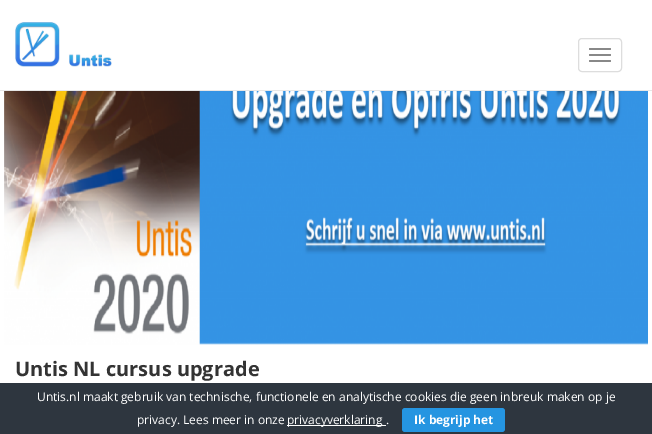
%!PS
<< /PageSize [652 434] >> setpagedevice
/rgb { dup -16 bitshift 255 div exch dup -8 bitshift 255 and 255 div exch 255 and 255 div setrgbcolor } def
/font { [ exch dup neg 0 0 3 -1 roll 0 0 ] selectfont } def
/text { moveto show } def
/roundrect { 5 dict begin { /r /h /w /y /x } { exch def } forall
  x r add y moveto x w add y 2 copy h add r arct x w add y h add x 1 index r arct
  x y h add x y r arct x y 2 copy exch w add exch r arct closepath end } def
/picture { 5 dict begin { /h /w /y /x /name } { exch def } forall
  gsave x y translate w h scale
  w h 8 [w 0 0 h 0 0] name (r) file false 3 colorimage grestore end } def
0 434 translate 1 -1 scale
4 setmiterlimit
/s1 { /OpenSans-Bold 20 font 16#333333 rgb } def
/s2 { /OpenSans-Regular 12 font 16#FFFFFF rgb } def
/s3 { /OpenSans-Bold 12 font 16#FFFFFF rgb } def
16#FFFFFF rgb
0 0 652 434 rectfill
16#E7E7E7 rgb
0 90 652 1 rectfill
(pic1.raw) 15 22 97 45 picture
16#DDDDDD rgb
578.5 38.5 43 33 3.5 roundrect stroke
16#888888 rgb
589 48 22 2 1 roundrect fill
589 54 22 2 1 roundrect fill
589 60 22 2 1 roundrect fill
(pic2.raw) 4 91 644 254 picture
s1
(Untis NL cursus upgrade) 15 376 text
16#2E363F rgb
0 383 652 51 rectfill
s2
(Untis.nl maakt gebruik van technische, functionele en analytische cookies die geen inbreuk maken op je) 37 401 text
(privacy. Lees meer in onze) 137 424 text
287 425 99 1 rectfill
(privacyverklaring) 287 424 text
(.) 386 424 text
16#2595E1 rgb
402 408 103 24 3 roundrect fill
s3
(Ik begrijp het) 414 424 text
showpage
